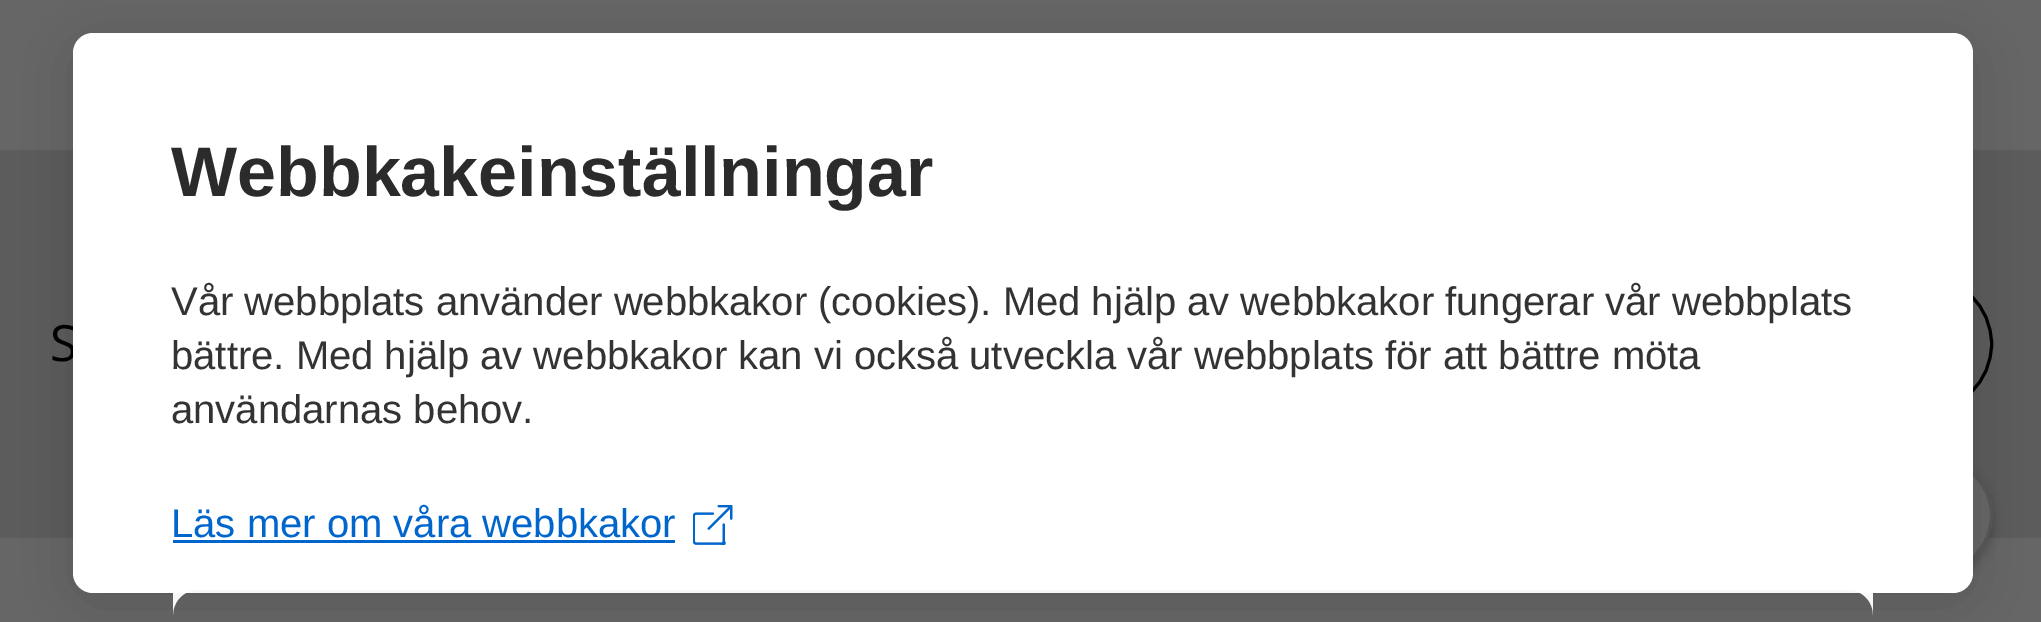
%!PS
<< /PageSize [2041 622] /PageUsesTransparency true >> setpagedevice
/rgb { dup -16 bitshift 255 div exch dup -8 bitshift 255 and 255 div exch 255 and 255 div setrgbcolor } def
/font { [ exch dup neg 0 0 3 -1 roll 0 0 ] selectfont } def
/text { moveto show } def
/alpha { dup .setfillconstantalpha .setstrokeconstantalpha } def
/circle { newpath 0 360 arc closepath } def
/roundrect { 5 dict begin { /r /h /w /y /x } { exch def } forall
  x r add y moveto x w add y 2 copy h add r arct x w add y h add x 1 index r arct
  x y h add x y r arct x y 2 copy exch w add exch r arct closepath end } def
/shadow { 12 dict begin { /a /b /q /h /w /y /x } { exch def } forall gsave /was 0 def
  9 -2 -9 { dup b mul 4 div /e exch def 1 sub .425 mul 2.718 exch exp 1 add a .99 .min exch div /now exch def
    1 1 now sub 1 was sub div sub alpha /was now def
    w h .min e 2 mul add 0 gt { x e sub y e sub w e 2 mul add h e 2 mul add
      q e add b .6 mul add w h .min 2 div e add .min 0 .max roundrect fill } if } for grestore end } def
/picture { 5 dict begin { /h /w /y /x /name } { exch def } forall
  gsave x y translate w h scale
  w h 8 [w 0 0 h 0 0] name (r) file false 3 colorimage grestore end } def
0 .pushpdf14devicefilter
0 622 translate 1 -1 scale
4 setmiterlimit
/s1 { /OpenSans-Regular 50 font 16#000000 rgb } def
/s2 { /LiberationSans-Bold 70 font 16#2B2B2B rgb } def
/s3 { /LiberationSans-Regular 40 font 16#333333 rgb } def
/s4 { /LiberationSans-Regular 40 font 16#0066CC rgb } def
16#5C5C5C rgb
0 0 2041 622 rectfill
16#666666 rgb
0 0 2041 150 rectfill
s1
(S) 50 361 text
3 setlinewidth
1704.5 276.5 287 135 67.5 roundrect stroke
16#666666 rgb
0 538 2041 84 rectfill
16#000000 rgb
1878 463 115 115 57.5 5 0.2 shadow
16#666666 rgb
1935.5 515.5 56 circle gsave fill grestore
16#585858 rgb
stroke
16#000000 rgb
73 43 1900 560 20 30 0.15 shadow
16#FFFFFF rgb
73 33 1900 560 20 roundrect fill
s2
(Webbkakeinställningar) 171 196 text
s3
(Vår webbplats använder webbkakor \(cookies\). Med hjälp av webbkakor fungerar vår webbplats) 171 315 text
(bättre. Med hjälp av webbkakor kan vi också utveckla vår webbplats för att bättre möta) 171 369 text
(användarnas behov.) 171 423 text
s4
(Läs mer om våra webbkakor) 171 537 text
173 540 502 3 rectfill
(pic1.raw) 693 505 40 40 picture
16#F8F8F8 rgb
198 590 moveto 1848 590 lineto 1862 590 1873 601 1873 615 curveto 1873 593 lineto 173 593 lineto 173 615 lineto 173 601 184 590 198 590 curveto closepath fill
.poppdf14devicefilter showpage
